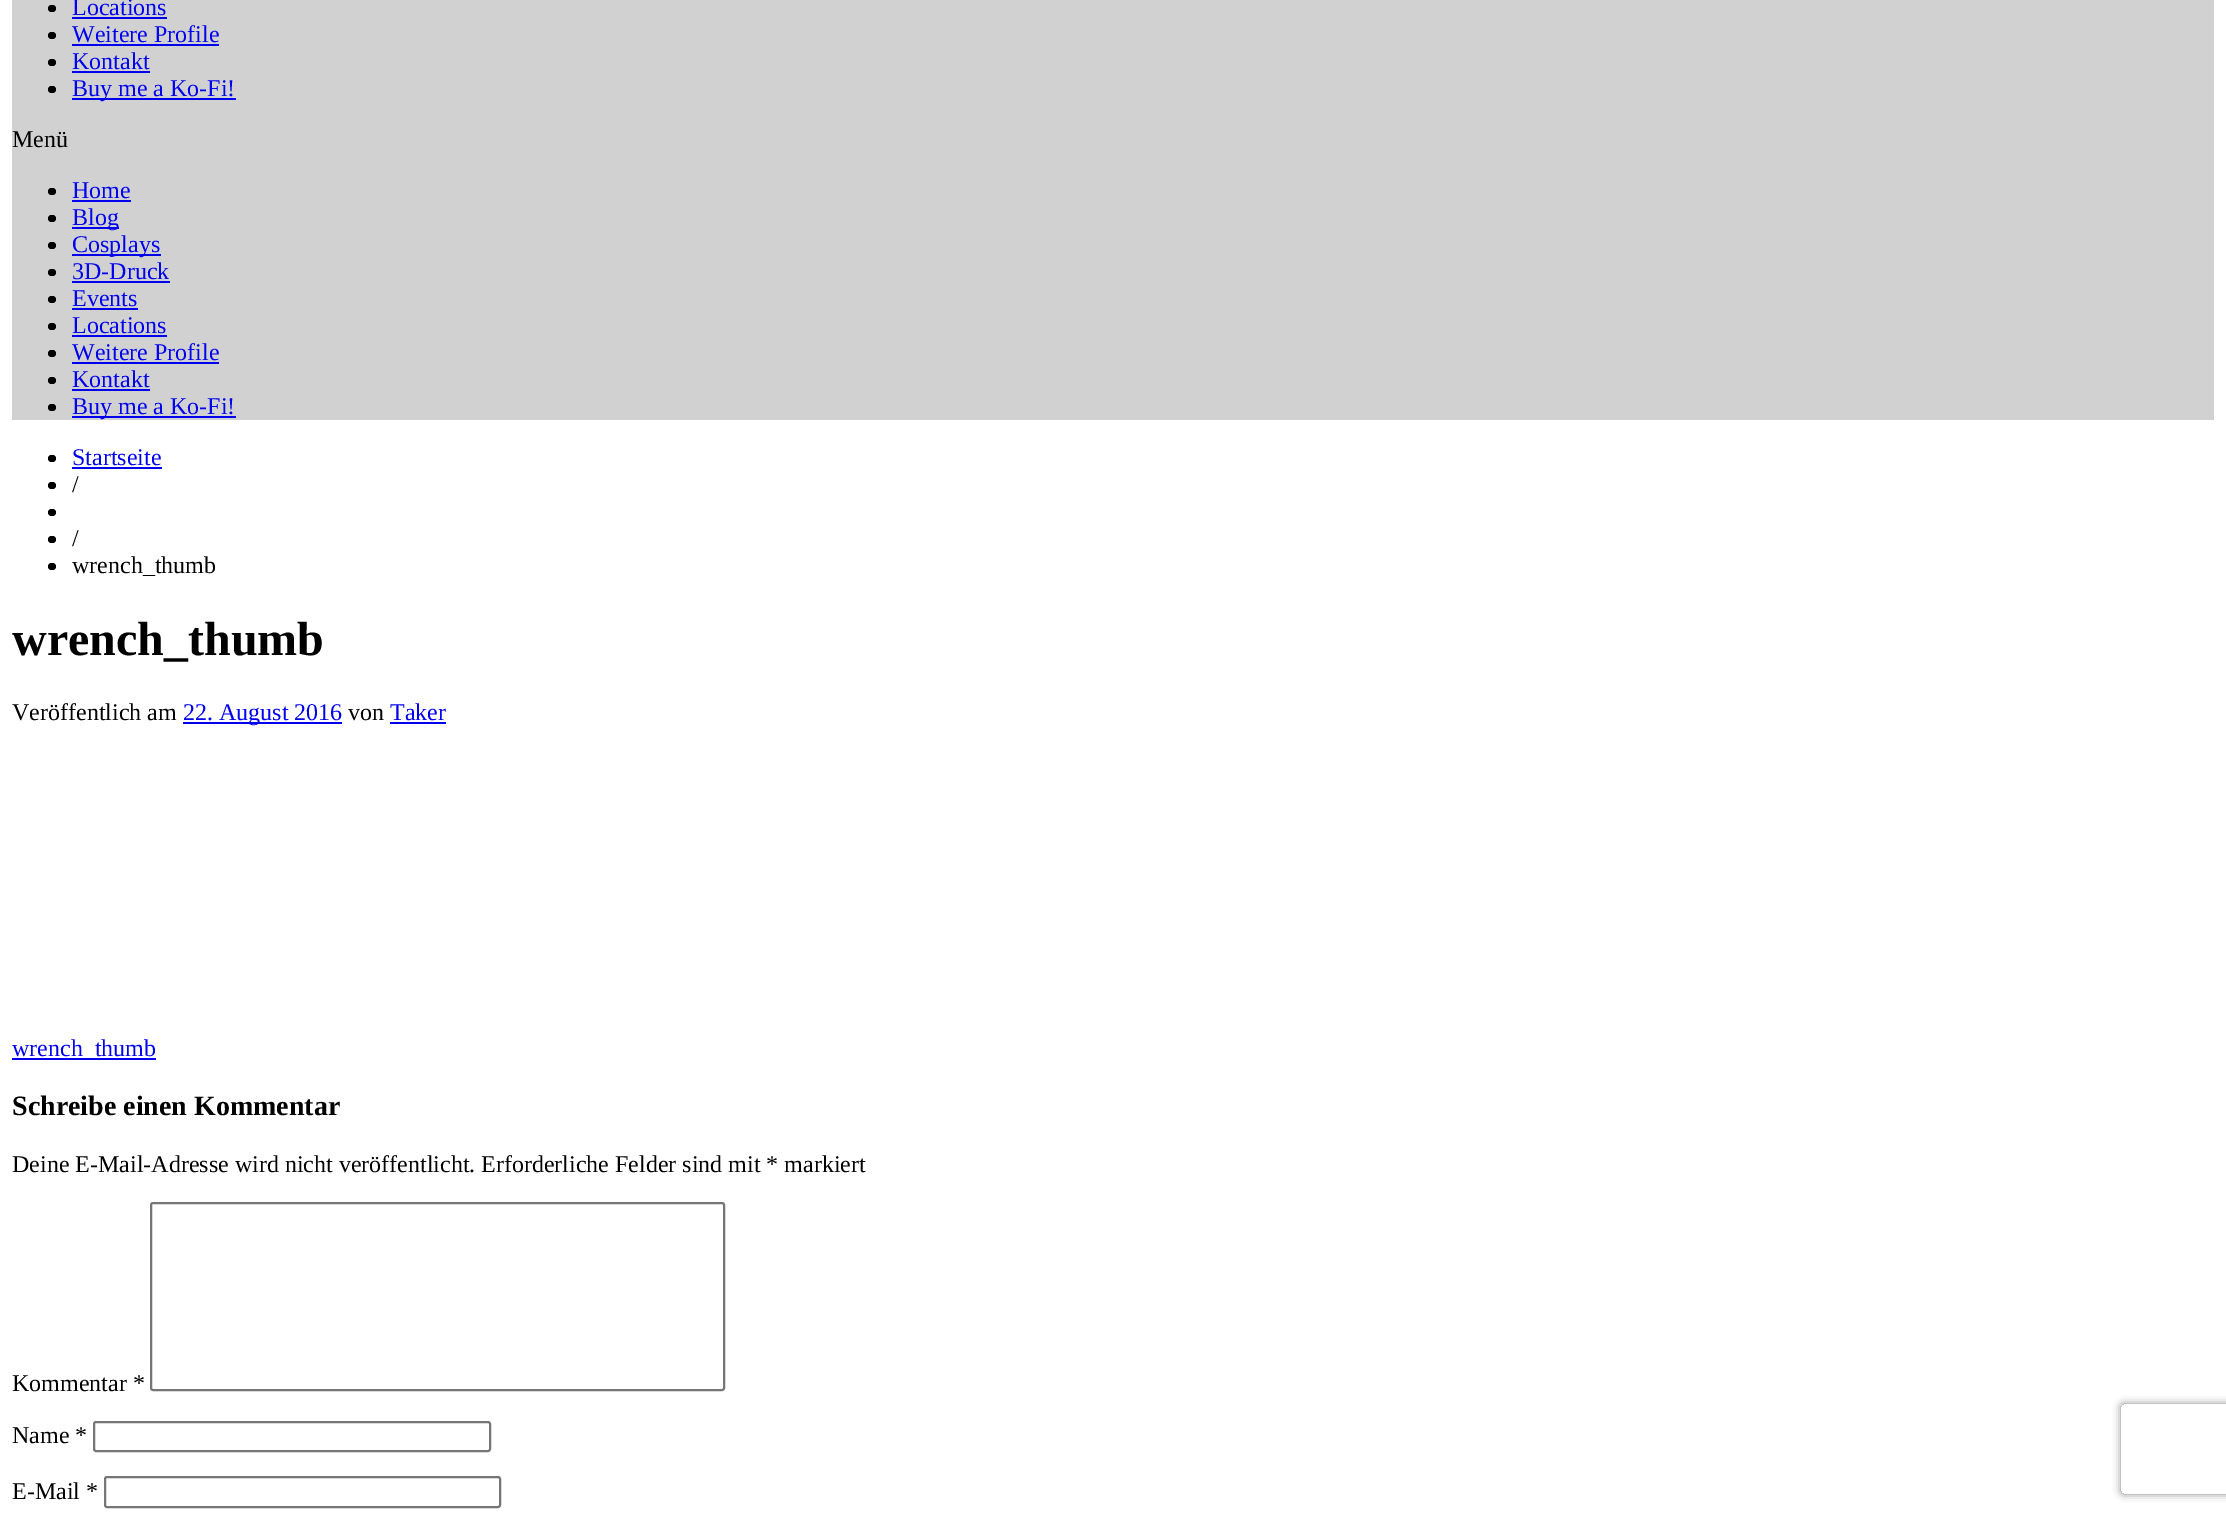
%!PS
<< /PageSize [2226 1515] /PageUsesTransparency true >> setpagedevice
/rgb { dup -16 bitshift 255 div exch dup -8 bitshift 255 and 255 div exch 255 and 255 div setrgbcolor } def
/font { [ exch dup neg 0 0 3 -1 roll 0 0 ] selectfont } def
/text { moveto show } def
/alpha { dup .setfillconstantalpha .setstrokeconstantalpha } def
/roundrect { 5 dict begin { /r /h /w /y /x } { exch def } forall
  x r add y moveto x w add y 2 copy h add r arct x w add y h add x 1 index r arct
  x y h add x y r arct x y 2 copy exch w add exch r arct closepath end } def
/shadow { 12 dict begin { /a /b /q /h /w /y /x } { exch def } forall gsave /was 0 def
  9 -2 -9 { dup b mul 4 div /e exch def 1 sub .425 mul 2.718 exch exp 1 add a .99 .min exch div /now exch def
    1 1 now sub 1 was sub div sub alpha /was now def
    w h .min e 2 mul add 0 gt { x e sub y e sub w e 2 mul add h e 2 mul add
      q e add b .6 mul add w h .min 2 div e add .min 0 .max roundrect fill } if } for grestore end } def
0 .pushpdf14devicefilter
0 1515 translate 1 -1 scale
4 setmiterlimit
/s1 { /LiberationSerif-Regular 24 font 16#0000EE rgb } def
/s2 { /LiberationSerif-Regular 24 font 16#000000 rgb } def
/s3 { /LiberationSerif-Bold 48 font 16#000000 rgb } def
/s4 { /LiberationSerif-Bold 28 font 16#000000 rgb } def
16#FFFFFF rgb
0 0 2226 1515 rectfill
16#D1D1D1 rgb
12 0 2202 420 rectfill
16#000000 rgb
48 5 8 7 3.5 roundrect fill
s1
(Locations) 72 15 text
72 17 95 2 rectfill
16#000000 rgb
48 32 8 7 3.5 roundrect fill
s1
(Weitere Profile) 72 42 text
72 44 147 2 rectfill
16#000000 rgb
48 59 8 7 3.5 roundrect fill
s1
(Kontakt) 72 69 text
72 71 78 2 rectfill
16#000000 rgb
48 86 8 7 3.5 roundrect fill
16#0000EE rgb
72 98 164 2 rectfill
(Buy me a Ko-Fi!) 72 96 text
s2
(Menü) 12 147 text
48 188 8 7 3.5 roundrect fill
s1
(Home) 72 198 text
72 200 59 2 rectfill
16#000000 rgb
48 215 8 7 3.5 roundrect fill
16#0000EE rgb
72 227 47 2 rectfill
(Blog) 72 225 text
16#000000 rgb
48 242 8 7 3.5 roundrect fill
16#0000EE rgb
72 254 89 2 rectfill
(Cosplays) 72 252 text
16#000000 rgb
48 269 8 7 3.5 roundrect fill
s1
(3D-Druck) 72 279 text
72 281 98 2 rectfill
16#000000 rgb
48 296 8 7 3.5 roundrect fill
s1
(Events) 72 306 text
72 308 66 2 rectfill
16#000000 rgb
48 323 8 7 3.5 roundrect fill
s1
(Locations) 72 333 text
72 335 95 2 rectfill
16#000000 rgb
48 350 8 7 3.5 roundrect fill
s1
(Weitere Profile) 72 360 text
72 362 147 2 rectfill
16#000000 rgb
48 377 8 7 3.5 roundrect fill
s1
(Kontakt) 72 387 text
72 389 78 2 rectfill
16#000000 rgb
48 404 8 7 3.5 roundrect fill
16#0000EE rgb
72 416 164 2 rectfill
(Buy me a Ko-Fi!) 72 414 text
16#000000 rgb
48 455 8 7 3.5 roundrect fill
s1
(Startseite) 72 465 text
72 467 90 2 rectfill
16#000000 rgb
48 482 8 7 3.5 roundrect fill
(/) 72 492 text
48 509 8 7 3.5 roundrect fill
48 536 8 7 3.5 roundrect fill
(/) 72 546 text
48 563 8 7 3.5 roundrect fill
(wrench_thumb) 72 573 text
s3
(wrench_thumb) 12 655 text
s2
(Veröffentlich am) 12 720 text
16#0000EE rgb
183 722 159 2 rectfill
(22. August 2016) 183 720 text
s2
(von) 348 720 text
s1
(Taker) 390 720 text
390 722 56 2 rectfill
12 1058 144 2 rectfill
(wrench_thumb) 12 1056 text
s4
(Schreibe einen Kommentar) 12 1115 text
s2
(Deine E-Mail-Adresse wird nicht veröffentlicht. Erforderliche Felder sind mit * markiert) 12 1172 text
(Kommentar *) 12 1391 text
16#767676 rgb
2 setlinewidth
151 1203 573 187 2 roundrect stroke
s2
(Name *) 12 1443 text
16#767676 rgb
94 1422 396 29 2 roundrect stroke
s2
(E-Mail *) 12 1499 text
16#767676 rgb
105 1477 395 30 2 roundrect stroke
gsave
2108 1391 moveto 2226 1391 lineto 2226 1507 lineto 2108 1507 lineto closepath 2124 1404 moveto 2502 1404 lineto 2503.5 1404 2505 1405.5 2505 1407 curveto 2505 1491 lineto 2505 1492.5 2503.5 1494 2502 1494 curveto 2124 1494 lineto 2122.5 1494 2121 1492.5 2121 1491 curveto 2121 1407 lineto 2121 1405.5 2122.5 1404 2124 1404 curveto closepath eoclip newpath
16#808080 rgb
2121 1404 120 90 3 4 1 shadow
grestore
.poppdf14devicefilter showpage
